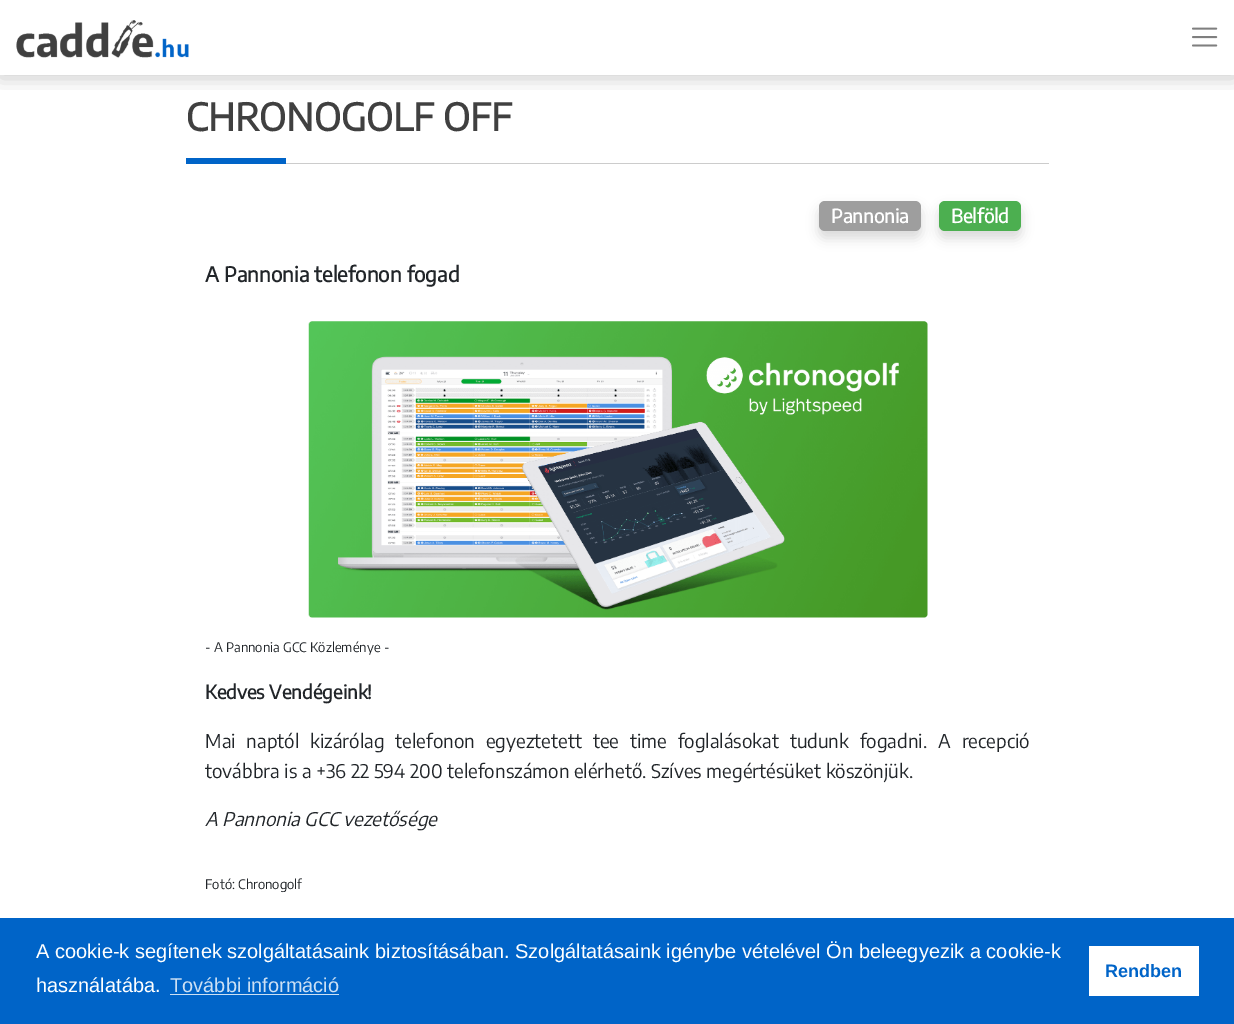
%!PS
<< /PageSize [1234 1024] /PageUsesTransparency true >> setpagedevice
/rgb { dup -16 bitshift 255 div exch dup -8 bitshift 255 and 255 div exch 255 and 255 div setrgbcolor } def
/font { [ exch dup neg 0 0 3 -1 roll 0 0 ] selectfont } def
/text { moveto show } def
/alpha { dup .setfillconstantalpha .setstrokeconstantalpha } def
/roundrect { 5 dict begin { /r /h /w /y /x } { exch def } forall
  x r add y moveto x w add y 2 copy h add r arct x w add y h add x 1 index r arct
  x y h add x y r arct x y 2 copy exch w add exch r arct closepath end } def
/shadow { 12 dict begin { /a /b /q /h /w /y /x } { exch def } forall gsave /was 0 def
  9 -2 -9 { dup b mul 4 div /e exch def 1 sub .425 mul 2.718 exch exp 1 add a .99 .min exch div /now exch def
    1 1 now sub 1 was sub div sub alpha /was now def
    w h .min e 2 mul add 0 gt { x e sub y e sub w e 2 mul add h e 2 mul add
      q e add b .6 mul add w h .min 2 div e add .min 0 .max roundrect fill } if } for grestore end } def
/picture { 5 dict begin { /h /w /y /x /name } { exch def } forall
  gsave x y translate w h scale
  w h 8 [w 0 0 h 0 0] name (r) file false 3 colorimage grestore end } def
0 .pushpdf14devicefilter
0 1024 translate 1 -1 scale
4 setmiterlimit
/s1 { /EncodeSansCondensed-Bold 37.5 font 16#404040 rgb } def
/s2 { /EncodeSansCondensed-Bold 18.75 font 16#FFFFFF rgb } def
/s3 { /EncodeSansCondensed-Bold 20.6 font 16#212529 rgb } def
/s4 { /EncodeSansCondensed-Thin 13.1 font 16#212529 rgb } def
/s5 { /EncodeSansCondensed-Bold 18.75 font 16#212529 rgb } def
/s6 { /EncodeSansCondensed-Thin 18.75 font 16#212529 rgb } def
/s7 { /EncodeSansCondensed-ThinItalic 18.75 font 16#212529 rgb } def
/s8 { /LiberationSans-Regular 20 font 16#FFFFFF rgb } def
/s9 { /LiberationSans-Regular 20 font 16#CCE0F4 rgb } def
/s10 { /LiberationSans-Bold 18 font 16#0064C8 rgb } def
16#FFFFFF rgb
0 0 1234 1024 rectfill
gsave
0 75 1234 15 rectclip
16#000000 rgb
0 3 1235 75 0 9.5 0.2 shadow
grestore
(pic1.raw) 16 20 173 38 picture
(pic2.raw) 1192 27 26 20 picture
s1
(CHRONOGOLF OFF) 186 131 text
16#0064C8 rgb
186 158 100 6 rectfill
16#CCCCCC rgb
286 163 763 1 rectfill
16#000000 rgb
939 208 82 30 6 6 0.15 shadow
16#4CAF50 rgb
939 201 82 30 6 roundrect fill
16#000000 rgb
819 208 102 30 6 6 0.15 shadow
16#9E9E9E rgb
819 201 102 30 6 roundrect fill
s2
(Pannonia) 831 223 text
(Belföld) 951 223 text
s3
(A Pannonia telefonon fogad) 205 282 text
(pic3.raw) 308 321 620 297 picture
s4
(- A Pannonia GCC Közleménye -) 205 652 text
s5
(Kedves Vendégeink!) 205 699 text
/EncodeSansCondensed-Thin 18.75 font
205 748 moveto 6.4 0 32 (Mai naptól kizárólag telefonon egyeztetett tee time foglalásokat tudunk fogadni. A recepció) widthshow
(továbbra is a +36 22 594 200 telefonszámon elérhető. Szíves megértésüket köszönjük.) 205 778 text
s7
(A Pannonia GCC vezetősége) 205 826 text
s4
(Fotó: Chronogolf) 205 889 text
16#0064C8 rgb
0 918 1234 106 rectfill
s8
(A cookie-k segítenek szolgáltatásaink biztosításában. Szolgáltatásaink igénybe vételével Ön beleegyezik a cookie-k) 36 958 text
(használatába.) 36 992 text
s9
(További információ) 170 992 text
170 994 169 1 rectfill
16#FFFFFF rgb
1089 946 110 50 rectfill
s10
(Rendben) 1105 977 text
.poppdf14devicefilter showpage
